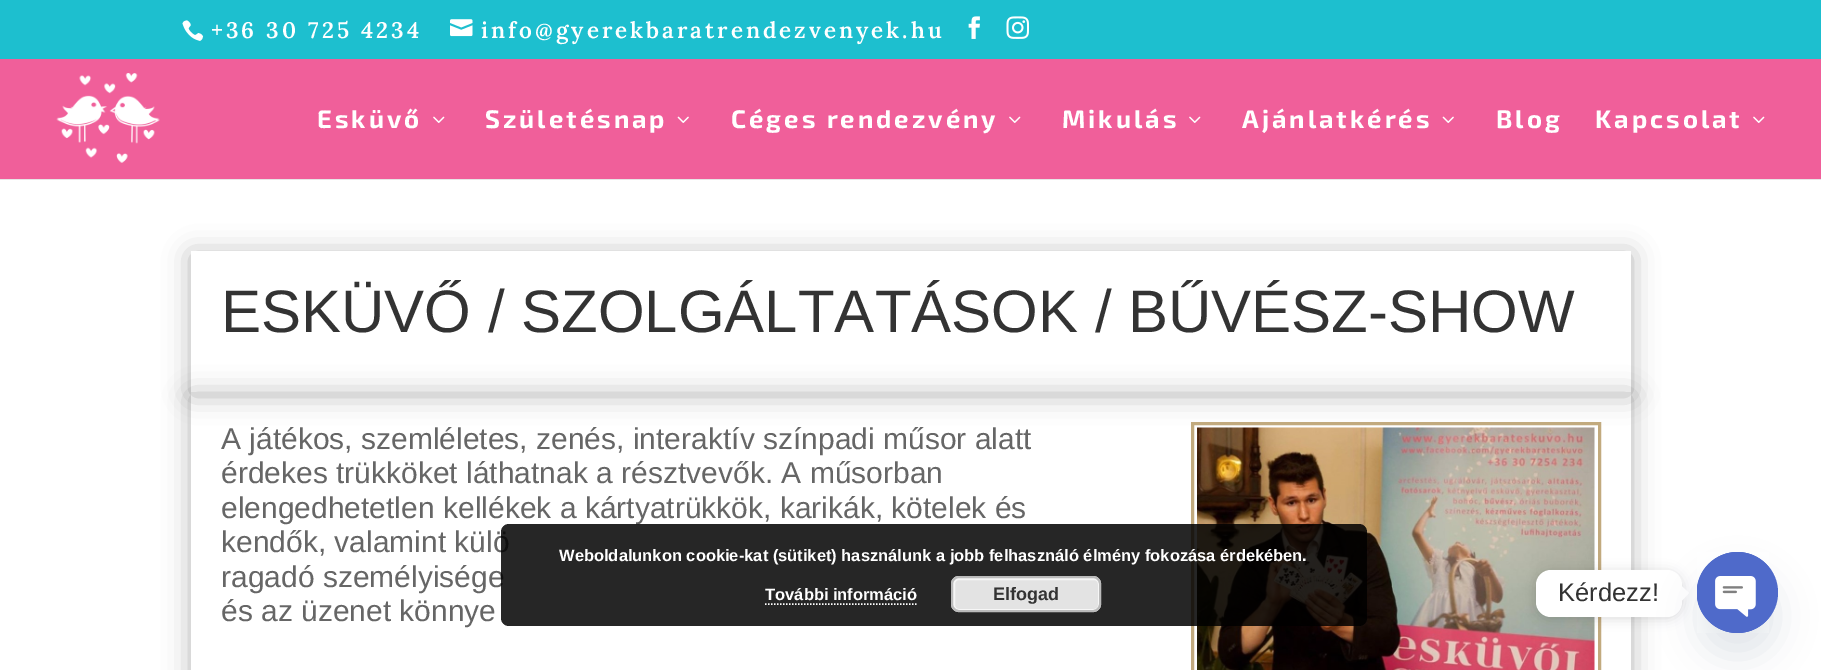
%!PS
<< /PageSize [1821 670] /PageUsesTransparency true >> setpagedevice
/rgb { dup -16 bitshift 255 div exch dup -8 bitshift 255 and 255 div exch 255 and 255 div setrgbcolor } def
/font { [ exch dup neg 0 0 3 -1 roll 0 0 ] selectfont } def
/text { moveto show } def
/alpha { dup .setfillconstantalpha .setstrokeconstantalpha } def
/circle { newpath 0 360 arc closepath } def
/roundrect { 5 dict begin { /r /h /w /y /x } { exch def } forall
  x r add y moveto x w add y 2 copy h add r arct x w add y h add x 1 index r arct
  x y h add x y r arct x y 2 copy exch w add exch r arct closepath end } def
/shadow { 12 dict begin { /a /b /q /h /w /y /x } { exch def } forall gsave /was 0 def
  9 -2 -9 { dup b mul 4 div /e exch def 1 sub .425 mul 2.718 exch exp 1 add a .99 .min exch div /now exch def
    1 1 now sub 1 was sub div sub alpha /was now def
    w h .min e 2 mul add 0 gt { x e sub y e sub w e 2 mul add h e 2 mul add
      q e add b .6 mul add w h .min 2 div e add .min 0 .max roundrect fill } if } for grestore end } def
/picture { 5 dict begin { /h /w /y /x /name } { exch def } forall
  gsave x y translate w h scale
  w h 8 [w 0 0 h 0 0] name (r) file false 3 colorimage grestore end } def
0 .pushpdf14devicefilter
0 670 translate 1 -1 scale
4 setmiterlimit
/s1 { /LiberationSans-Regular 60 font 16#333333 rgb } def
/s2 { /LiberationSans-Regular 30 font 16#666666 rgb } def
/s3 { /LiberationSans-Bold 16.5 font 16#FFFFFF rgb } def
/s4 { /LiberationSans-Bold 18 font 16#333333 rgb } def
/s5 { /LiberationSans-Regular 25.5 font 16#333333 rgb } def
16#1DBFCF rgb
0 0 1821 670 rectfill
(pic1.raw) 182 20 22 21 picture
/Lora-SemiBold 22.5 font
16#FFFFFF rgb
211 38 moveto 3 0 (+36 30 725 4234) ashow
(pic2.raw) 450 19 23 18 picture
481 38 moveto 3 0 (info@gyerekbaratrendezvenyek.hu) ashow
(pic3.raw) 968 16 12 23 picture
(pic4.raw) 1006 16 23 23 picture
16#F05F9A rgb
0 59 1821 120 rectfill
(pic5.raw) 56 73 104 90 picture
/Exo2-Bold 25.5 font
16#FFFFFF rgb
317 128 moveto 3 0 (Esküvő) ashow
(pic6.raw) 433 116 12 7 picture
485 128 moveto 3 0 (Születésnap) ashow
(pic7.raw) 677 116 12 7 picture
731 128 moveto 3 0 (Céges rendezvény) ashow
(pic6.raw) 1009 116 12 7 picture
1062 128 moveto 3 0 (Mikulás) ashow
(pic6.raw) 1189 116 12 7 picture
1242 128 moveto 3 0 (Ajánlatkérés) ashow
(pic7.raw) 1442 116 12 7 picture
1496 128 moveto 3 0 (Blog) ashow
1595 128 moveto 3 0 (Kapcsolat) ashow
(pic6.raw) 1753 116 12 7 picture
0 180 1821 490 rectfill
16#E6E6E6 rgb
0 179 1821 1 rectfill
gsave
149 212 moveto 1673 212 lineto 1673 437 lineto 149 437 lineto closepath 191 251 moveto 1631 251 lineto 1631 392 lineto 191 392 lineto closepath eoclip newpath
16#000000 rgb
191 254 1440 141 0 13.5 0.3 shadow
grestore
s1
(ESKÜVŐ / SZOLGÁLTATÁSOK / BŰVÉSZ-SHOW) 221 332 text
gsave
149 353 moveto 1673 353 lineto 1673 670 lineto 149 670 lineto closepath 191 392 moveto 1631 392 lineto 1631 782 lineto 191 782 lineto closepath eoclip newpath
16#000000 rgb
191 395 1440 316 0 13.5 0.3 shadow
grestore
s2
(A játékos, szemléletes, zenés, interaktív színpadi műsor alatt) 221 449 text
(érdekes trükköket láthatnak a résztvevők. A műsorban) 221 483 text
(elengedhetetlen kellékek a kártyatrükkök, karikák, kötelek és) 221 518 text
(kendők, valamint külö) 221 552 text
(ragadó személyisége) 221 587 text
(és az üzenet könnye) 221 621 text
16#C2AA7E rgb
3 setlinewidth
1192.5 423.5 407 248 rectstroke
(pic8.raw) 1197 427 398 243 picture
0.85 alpha
16#000000 rgb
501 524 866 102 8 roundrect fill
1 alpha
s3
(Weboldalunkon cookie-kat \(sütiket\) használunk a jobb felhasználó élmény fokozása érdekében.) 559 561 text
(További információ) 765 600 text
1.5 setlinewidth
[1.5 1.5] 0 setdash
765 604 moveto 916.5 604 lineto stroke
16#E3E3E3 rgb
951 576 150 36 8 roundrect fill
16#F6F6F6 rgb
2 setlinewidth
[] 0 setdash
954 579 145 31 5 roundrect stroke
16#BBBBBB rgb
952 577 148 34 7 roundrect stroke
s4
(Elfogad) 993 600 text
16#000000 rgb
1536 572 146 46 15 6 0.15 shadow
16#FFFFFF rgb
1536 570 146 47 15 roundrect fill
s5
(Kérdezz!) 1558 601 text
16#FFFFFF rgb
1681.5 601 moveto 1681.5 586 lineto 1689 593 lineto closepath fill
16#49687E rgb
1697 576 81 81 40.5 18 0.16 shadow
16#4F6ACA rgb
1737.5 592.5 40.5 circle fill
(pic9.raw) 1697 552 72 81 picture
.poppdf14devicefilter showpage
